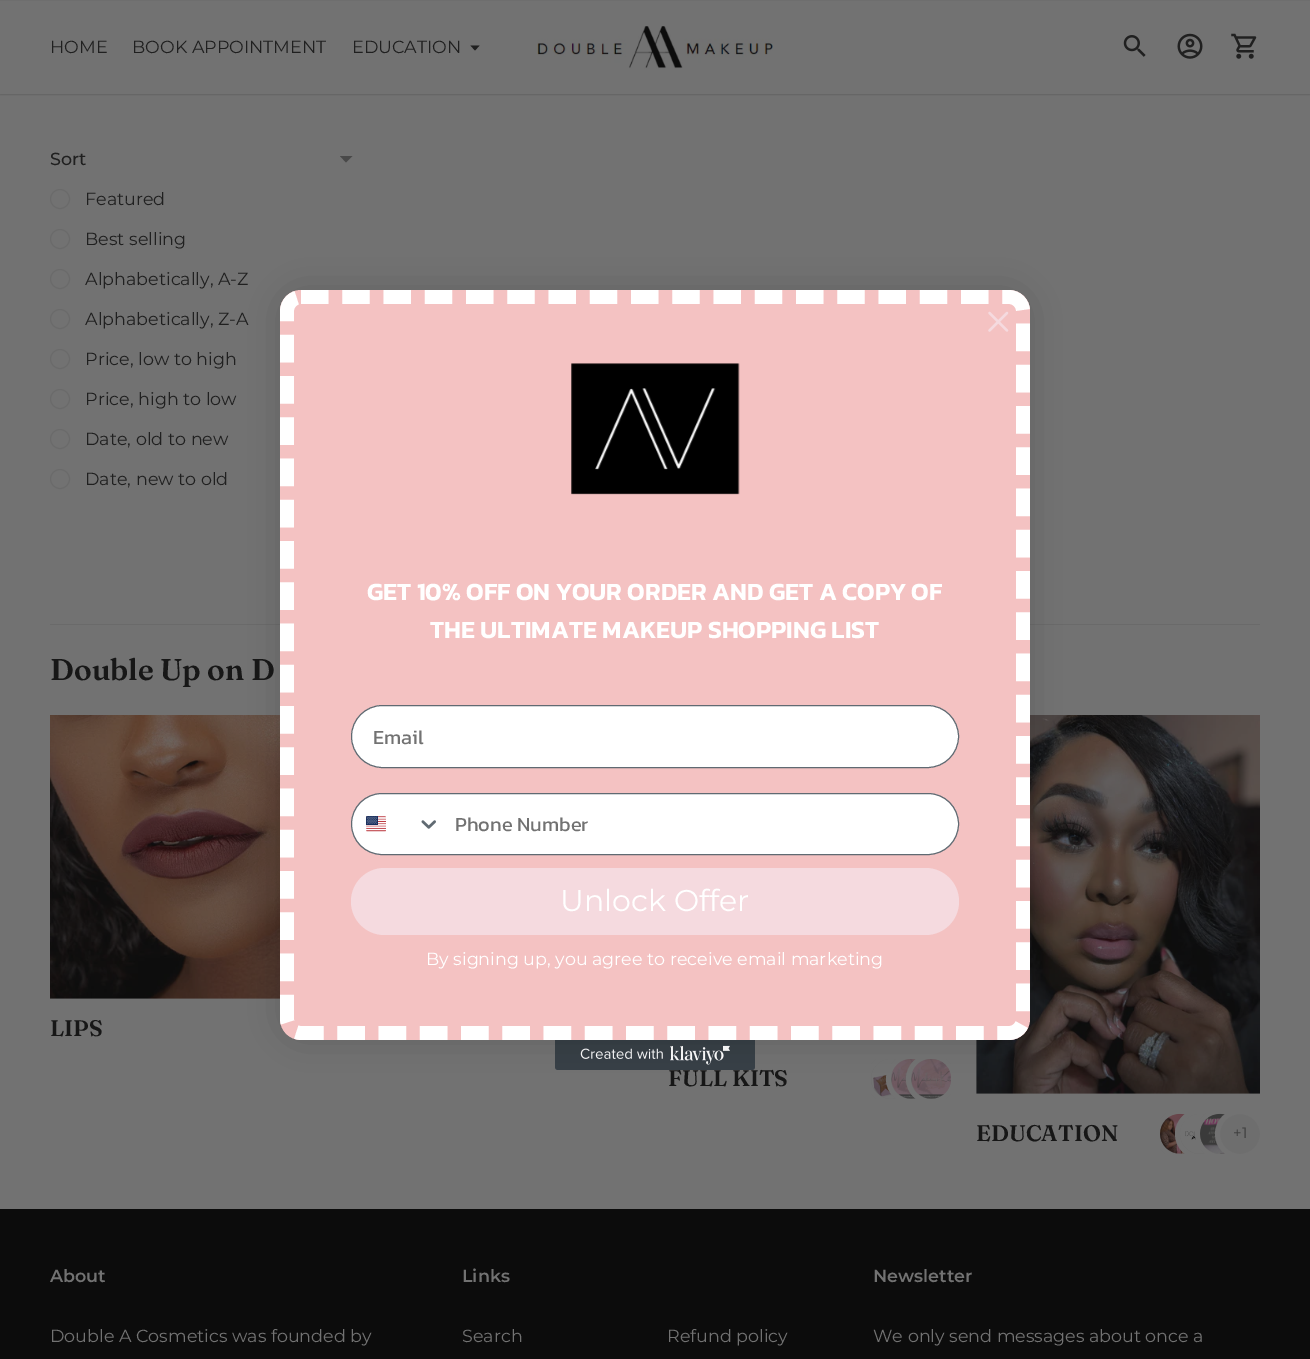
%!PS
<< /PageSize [1310 1359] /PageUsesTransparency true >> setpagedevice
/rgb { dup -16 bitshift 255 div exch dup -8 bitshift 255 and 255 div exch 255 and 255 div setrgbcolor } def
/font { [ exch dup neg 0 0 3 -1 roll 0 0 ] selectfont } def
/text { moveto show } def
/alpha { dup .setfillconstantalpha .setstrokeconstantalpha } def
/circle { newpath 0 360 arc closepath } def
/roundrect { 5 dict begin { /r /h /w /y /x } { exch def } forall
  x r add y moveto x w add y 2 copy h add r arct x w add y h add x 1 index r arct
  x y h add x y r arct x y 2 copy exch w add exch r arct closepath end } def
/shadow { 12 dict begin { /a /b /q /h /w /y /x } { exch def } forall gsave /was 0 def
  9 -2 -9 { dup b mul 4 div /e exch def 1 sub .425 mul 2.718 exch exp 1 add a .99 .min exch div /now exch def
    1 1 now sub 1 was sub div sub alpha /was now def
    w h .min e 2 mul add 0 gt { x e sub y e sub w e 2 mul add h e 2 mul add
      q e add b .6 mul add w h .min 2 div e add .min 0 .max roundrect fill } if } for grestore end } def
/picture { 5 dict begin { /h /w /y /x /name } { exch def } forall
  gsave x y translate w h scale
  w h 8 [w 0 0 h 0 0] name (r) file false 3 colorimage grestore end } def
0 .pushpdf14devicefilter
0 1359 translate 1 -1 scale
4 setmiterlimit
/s1 { /Montserrat-Thin 17.5 font 16#202020 rgb } def
/s2 { /Montserrat-Medium 17.5 font 16#202020 rgb } def
/s3 { /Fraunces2-SemiBold 30 font 16#171717 rgb } def
/s4 { /Fraunces-SemiBold 22.5 font 16#171717 rgb } def
/s5 { /Montserrat-Thin 15 font 16#3F3F3F rgb } def
/s6 { /Montserrat-SemiBold 17.5 font 16#727272 rgb } def
/s7 { /Montserrat-Thin 17.5 font 16#727272 rgb } def
/s8 { /Kanit-SemiBold 25 font 16#FFFFFF rgb } def
/s9 { /Kanit-Regular 20 font 16#727272 rgb } def
/s10 { /Montserrat-Thin 30 font 16#FFFFFF rgb } def
/s11 { /Montserrat-Thin 17.5 font 16#FFFFFF rgb } def
16#727272 rgb
0 0 1310 1359 rectfill
16#0C0C0C rgb
0 1 1310 94 0 0.5 0.15 shadow
16#727272 rgb
0 1 1310 93 rectfill
s1
(HOME) 50 53 text
(BOOK APPOINTMENT) 132 53 text
(EDUCATION) 352 53 text
470.5 45.5 moveto 475 50.5 lineto 479.5 45.5 lineto closepath fill
(pic1.raw) 537 26 236 43 picture
(pic2.raw) 1123 35 23 22 picture
(pic3.raw) 1177 33 26 26 picture
(pic4.raw) 1231 33 26 26 picture
s2
(Sort) 50 165 text
16#494949 rgb
340 156 moveto 346 162.5 lineto 352.5 156 lineto closepath fill
16#6A6A6A rgb
60 199 9.5 circle stroke
s1
(Featured) 85 205 text
16#6A6A6A rgb
60 239 9.5 circle stroke
s1
(Best selling) 85 245 text
16#6A6A6A rgb
60 279 9.5 circle stroke
s1
(Alphabetically, A-Z) 85 285 text
16#6A6A6A rgb
60 319 9.5 circle stroke
s1
(Alphabetically, Z-A) 85 325 text
16#6A6A6A rgb
60 359 9.5 circle stroke
s1
(Price, low to high) 85 365 text
16#6A6A6A rgb
60 399 9.5 circle stroke
s1
(Price, high to low) 85 405 text
16#6A6A6A rgb
60 439 9.5 circle stroke
s1
(Date, old to new) 85 445 text
16#6A6A6A rgb
60 479 9.5 circle stroke
s1
(Date, new to old) 85 485 text
16#6A6A6A rgb
50 624 1210 1 rectfill
s3
(Double Up on D) 50 680 text
16#6E6E6E rgb
50 998 230 1 rectfill
(pic5.raw) 50 715 230 284 picture
s4
(LIPS) 50 1036 text
(FULL KITS) 668 1086 text
16#6E6E6E rgb
891 1079 20 circle fill
(pic7.raw) 871 1059 31 40 picture
16#727272 rgb
5 setlinewidth
911 1079 22.5 circle stroke
16#6E6E6E rgb
911 1079 20 circle fill
(pic6.raw) 891 1059 31 40 picture
16#727272 rgb
931 1079 22.5 circle stroke
16#6E6E6E rgb
931 1079 20 circle fill
(pic8.raw) 911 1059 40 40 picture
976 1040 284 54 rectfill
(pic9.raw) 976 715 284 379 picture
s4
(EDUCATION) 976 1141 text
16#6E6E6E rgb
1180 1134 20 circle fill
(pic11.raw) 1160 1113 31 41 picture
16#727272 rgb
1200 1134 22.5 circle stroke
16#6E6E6E rgb
1200 1134 20 circle fill
(pic10.raw) 1180 1114 31 40 picture
16#727272 rgb
1220 1134 22.5 circle stroke
16#6E6E6E rgb
1220 1134 20 circle fill
(pic12.raw) 1200 1113 25 41 picture
1240 1134 22.5 circle gsave fill grestore
16#727272 rgb
stroke
s5
(+1) 1233 1138 text
16#0C0C0C rgb
0 1209 1310 150 rectfill
s6
(About) 50 1282 text
s7
(Double A Cosmetics was founded by) 50 1342 text
s6
(Links) 462 1282 text
s7
(Search) 462 1342 text
(Refund policy) 667 1342 text
s6
(Newsletter) 873 1282 text
s7
(We only send messages about once a) 873 1342 text
(pic16.raw) 555 1040 200 30 picture
16#000000 rgb
280 290 750 750 21 19 0.15 shadow
16#F4C2C2 rgb
280 290 750 750 21 roundrect fill
16#FFFFFF rgb
13.8 setlinewidth
[27.5 13.75] 0 setdash
301 297 moveto 1009 297 lineto 1016.5 297 1023 303.5 1023 311 curveto 1023 1019 lineto 1023 1026.5 1016.5 1033 1009 1033 curveto 301 1033 lineto 293.5 1033 287 1026.5 287 1019 curveto 287 311 lineto 287 303.5 293.5 297 301 297 curveto closepath stroke
16#F5DADF rgb
2.2 setlinewidth
1 setlinecap
1 setlinejoin
[] 0 setdash
989.5 313 moveto 1007 330.5 lineto 989.5 330.5 moveto 1007 313 lineto closepath stroke
(pic13.raw) 571 363 169 132 picture
s8
(GET 10% OFF ON YOUR ORDER AND GET A COPY OF) 367 600 text
(THE ULTIMATE MAKEUP SHOPPING LIST) 430 638 text
351.5 705.5 607 62 31 roundrect gsave fill grestore
16#606A72 rgb
1 setlinewidth
0 setlinecap
0 setlinejoin
stroke
s9
(Email) 373 744 text
16#FFFFFF rgb
351.5 793.5 607 61 30.5 roundrect gsave fill grestore
16#606A72 rgb
stroke
(pic14.raw) 366 816 20 16 picture
(pic15.raw) 421 820 15 9 picture
s9
(Phone Number) 455 831 text
16#F5DADF rgb
351 868 608 67 33.5 roundrect fill
s10
(Unlock Offer) 560 911 text
s11
(By signing up, you agree to receive email marketing) 426 965 text
.poppdf14devicefilter showpage
